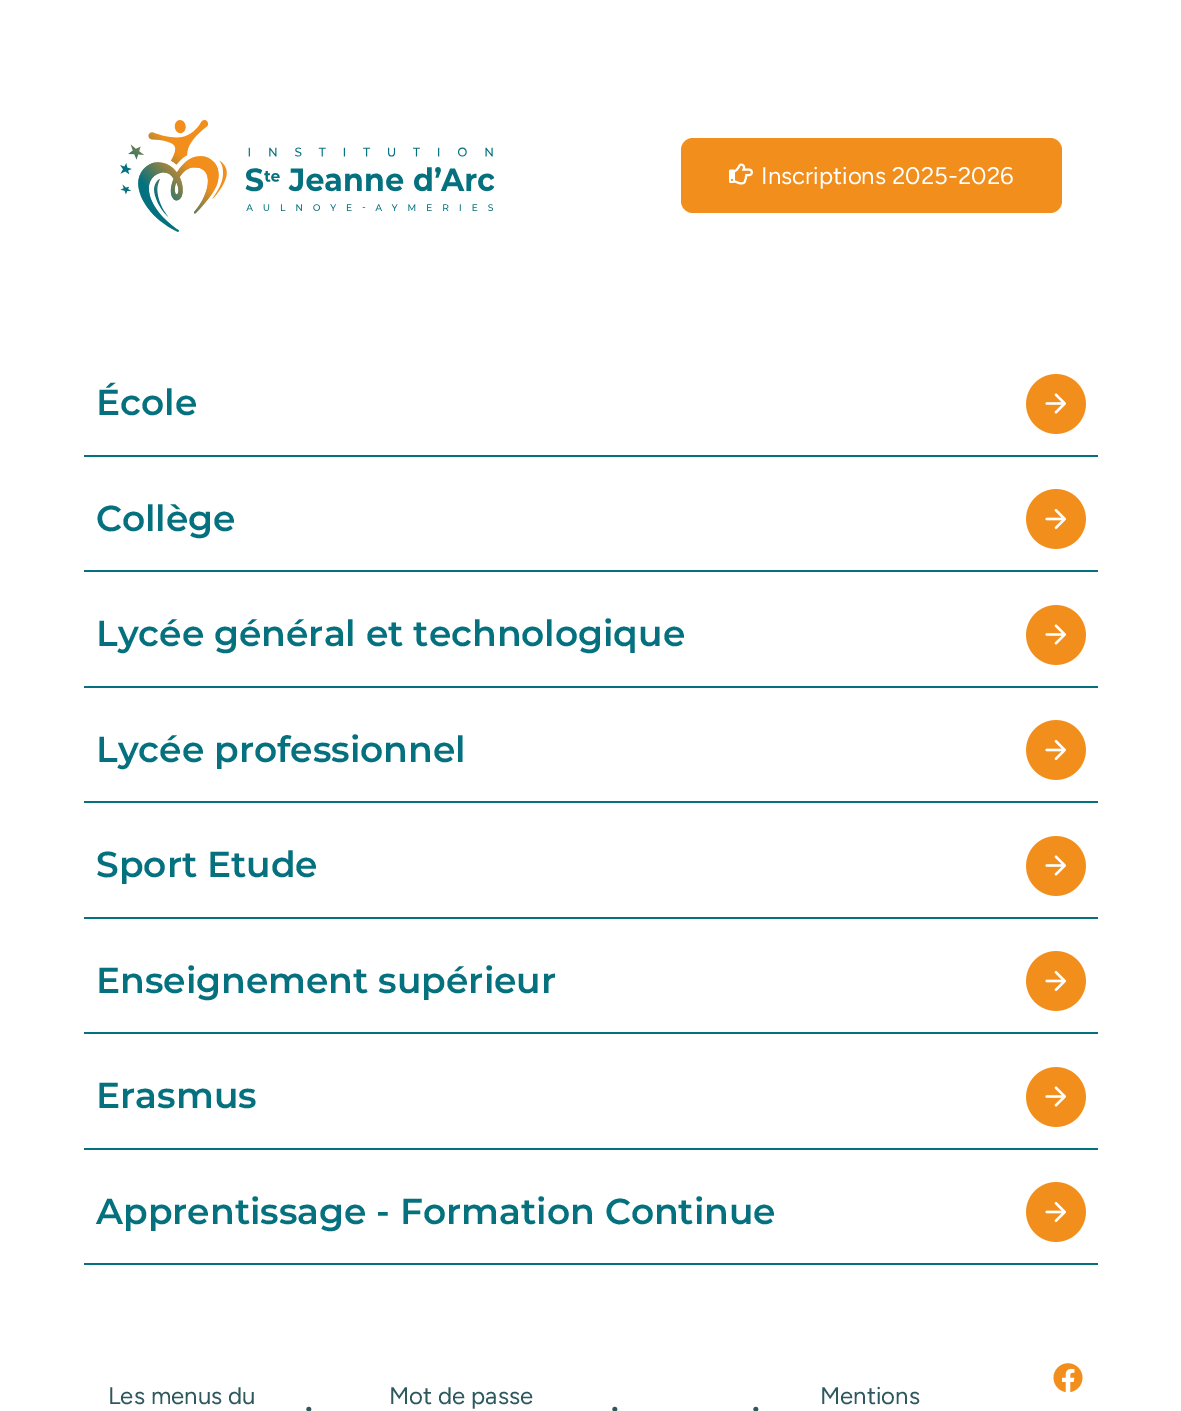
%!PS
<< /PageSize [1181 1411] >> setpagedevice
/rgb { dup -16 bitshift 255 div exch dup -8 bitshift 255 and 255 div exch 255 and 255 div setrgbcolor } def
/font { [ exch dup neg 0 0 3 -1 roll 0 0 ] selectfont } def
/text { moveto show } def
/roundrect { 5 dict begin { /r /h /w /y /x } { exch def } forall
  x r add y moveto x w add y 2 copy h add r arct x w add y h add x 1 index r arct
  x y h add x y r arct x y 2 copy exch w add exch r arct closepath end } def
/picture { 5 dict begin { /h /w /y /x /name } { exch def } forall
  gsave x y translate w h scale
  w h 8 [w 0 0 h 0 0] name (r) file false 3 colorimage grestore end } def
0 1411 translate 1 -1 scale
4 setmiterlimit
/s1 { /Figtree-Regular 24 font 16#FFFFFF rgb } def
/s2 { /Montserrat-SemiBold 36 font 16#05717F rgb } def
/s3 { /Figtree-Regular 24 font 16#2D585E rgb } def
16#FFFFFF rgb
0 0 1181 1411 rectfill
(pic1.raw) 120 120 375 112 picture
16#F28F1C rgb
681 138 381 75 12 roundrect fill
(pic2.raw) 729 163 24 22 picture
s1
(Inscriptions 2025-2026) 761 184 text
16#05717F rgb
84 455 1014 2 rectfill
s2
(École) 96 415 text
(pic3.raw) 1026 374 60 60 picture
84 570 1014 2 rectfill
(Collège) 96 531 text
(pic4.raw) 1026 489 60 60 picture
84 686 1014 2 rectfill
(Lycée général et technologique) 96 646 text
(pic3.raw) 1026 605 60 60 picture
84 801 1014 2 rectfill
(Lycée professionnel) 96 762 text
(pic4.raw) 1026 720 60 60 picture
84 917 1014 2 rectfill
(Sport Etude) 96 877 text
(pic3.raw) 1026 836 60 60 picture
84 1032 1014 2 rectfill
(Enseignement supérieur) 96 993 text
(pic4.raw) 1026 951 60 60 picture
84 1148 1014 2 rectfill
(Erasmus) 96 1108 text
(pic3.raw) 1026 1067 60 60 picture
84 1263 1014 2 rectfill
(Apprentissage - Formation Continue) 96 1224 text
(pic4.raw) 1026 1182 60 60 picture
(pic5.raw) 1053 1363 30 30 picture
s3
(Les menus du) 108 1404 text
(•) 303 1416 text
(Mot de passe) 389 1404 text
(•) 609 1416 text
(•) 750 1416 text
(Mentions) 820 1404 text
showpage
